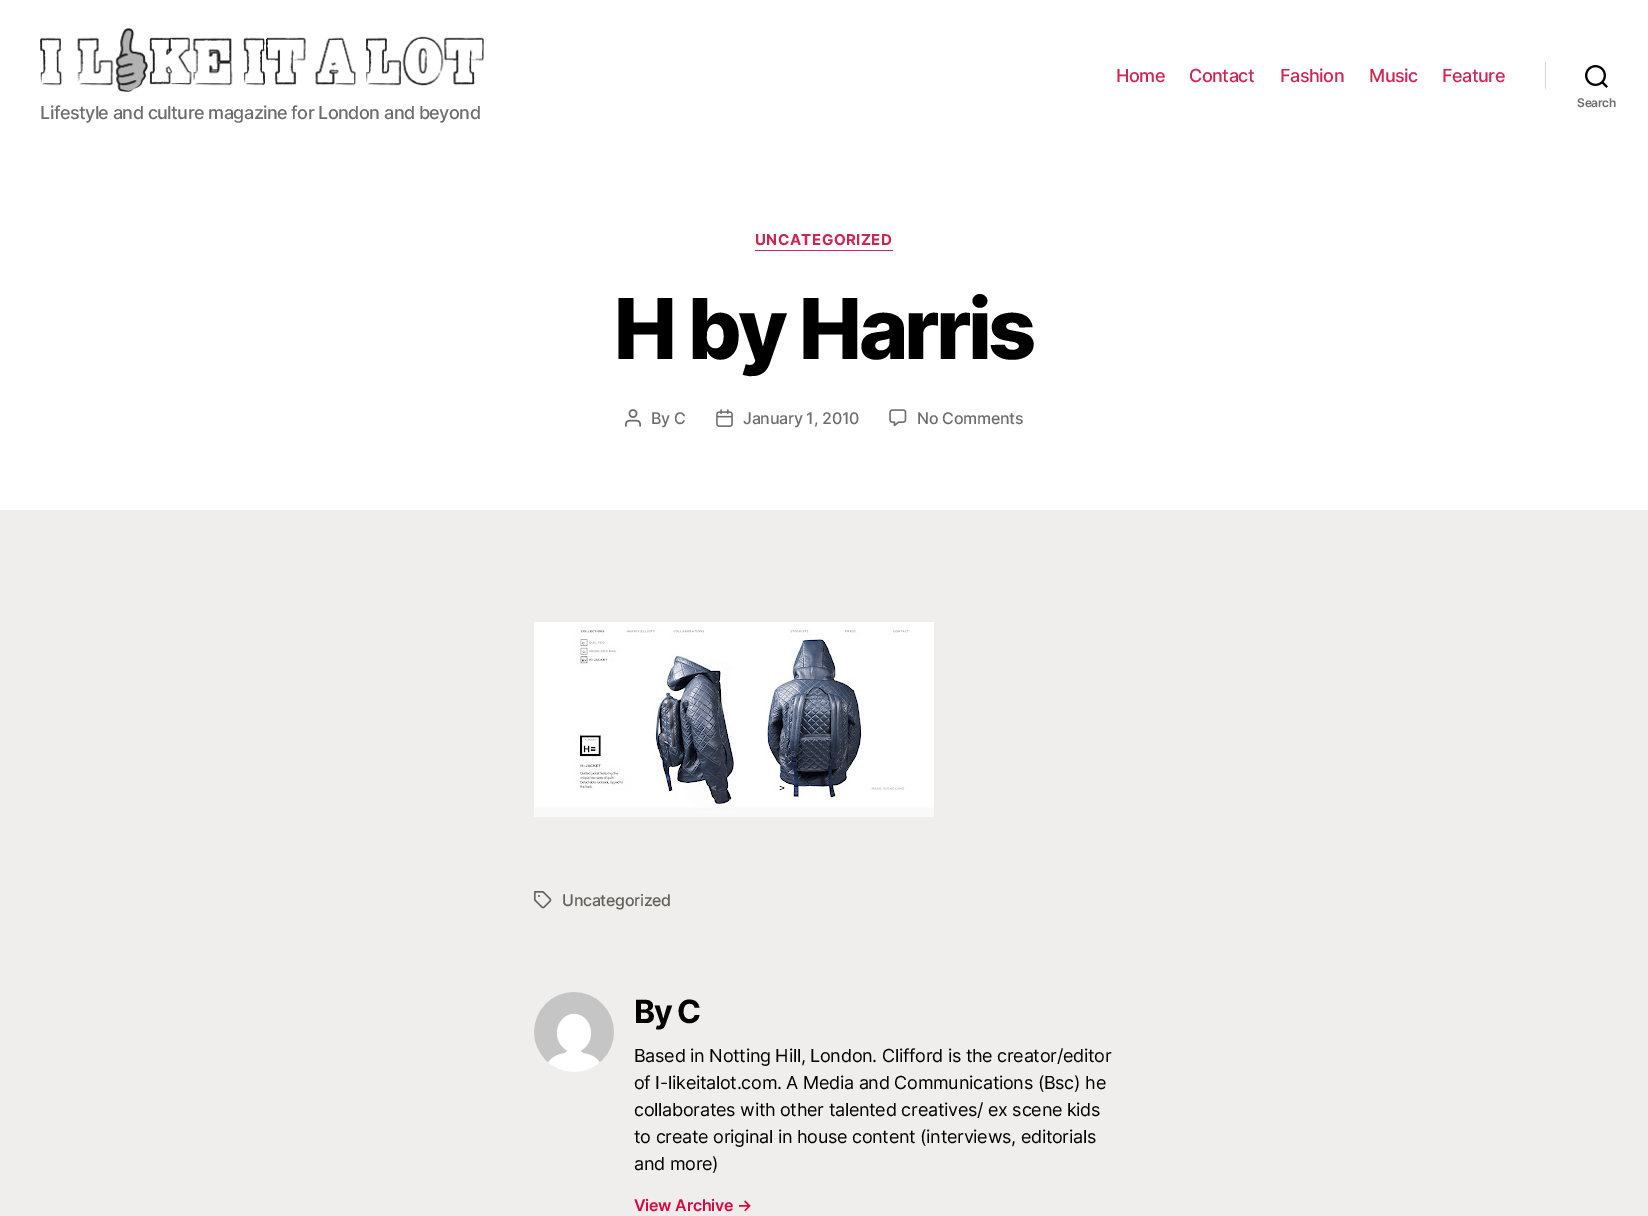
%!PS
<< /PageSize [1648 1216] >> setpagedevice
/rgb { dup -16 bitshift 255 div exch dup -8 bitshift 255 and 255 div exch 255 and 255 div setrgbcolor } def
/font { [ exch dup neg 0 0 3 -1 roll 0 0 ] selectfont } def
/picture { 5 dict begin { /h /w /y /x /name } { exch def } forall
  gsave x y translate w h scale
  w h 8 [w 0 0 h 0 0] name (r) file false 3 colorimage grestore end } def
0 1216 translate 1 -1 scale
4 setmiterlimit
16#EFEEED rgb
0 0 1648 1216 rectfill
16#FFFFFF rgb
0 0 1648 510 rectfill
/Inter-Medium 18 font
16#CD2653 rgb
1116 82 moveto -0.5 0 (Home) ashow
1189 82 moveto -0.5 0 (Contact) ashow
1280 82 moveto -0.5 0 (Fashion) ashow
1369 82 moveto -0.5 0 (Music) ashow
1442 82 moveto -0.5 0 (Feature) ashow
16#DCD7CA rgb
1545 62 1 27 rectfill
(pic1.raw) 1585 65 23 23 picture
/Inter-SemiBold 12 font
16#6D6D6D rgb
1577 107 moveto -0.27 0 (Search) ashow
(pic2.raw) 40 28 444 64 picture
/Inter-Medium 18 font
40 119 moveto -0.55 0 (Lifestyle and culture magazine for London and beyond) ashow
16#CD2653 rgb
755 250 138 1 rectfill
/Inter-Bold 15 font
755 245 moveto 0.5 0 (UNCATEGORIZED) ashow
/Inter-ExtraBold 84 font
16#000000 rgb
614 359 moveto -3.5 0 (H by Harris) ashow
(pic3.raw) 625 409 16 18 picture
/Inter-Medium 16 font
16#6D6D6D rgb
651 424 moveto -0.27 0 (By C) ashow
(pic4.raw) 716 409 17 18 picture
743 424 moveto -0.27 0 (January 1, 2010) ashow
(pic5.raw) 889 409 18 18 picture
917 424 moveto -0.27 0 (No Comments) ashow
(pic6.raw) 534 622 400 195 picture
(pic7.raw) 534 891 18 18 picture
16#61615B rgb
562 906 moveto -0.27 0 (Uncategorized) ashow
(pic8.raw) 534 992 80 80 picture
/Inter-Bold 32 font
16#000000 rgb
634 1023 moveto -1.5 0 (By C) ashow
/Inter-Regular 18 font
634 1062 moveto -0.27 0 (Based in Notting Hill, London. Clifford is the creator/editor) ashow
634 1089 moveto -0.27 0 (of I-likeitalot.com. A Media and Communications \(Bsc\) he) ashow
634 1116 moveto -0.27 0 (collaborates with other talented creatives/ ex scene kids) ashow
634 1143 moveto -0.27 0 (to create original in house content \(interviews, editorials) ashow
634 1170 moveto -0.27 0 (and more\)) ashow
/Inter-SemiBold 16 font
16#D8073F rgb
634 1211 moveto -0.27 0 (View Archive →) ashow
showpage
